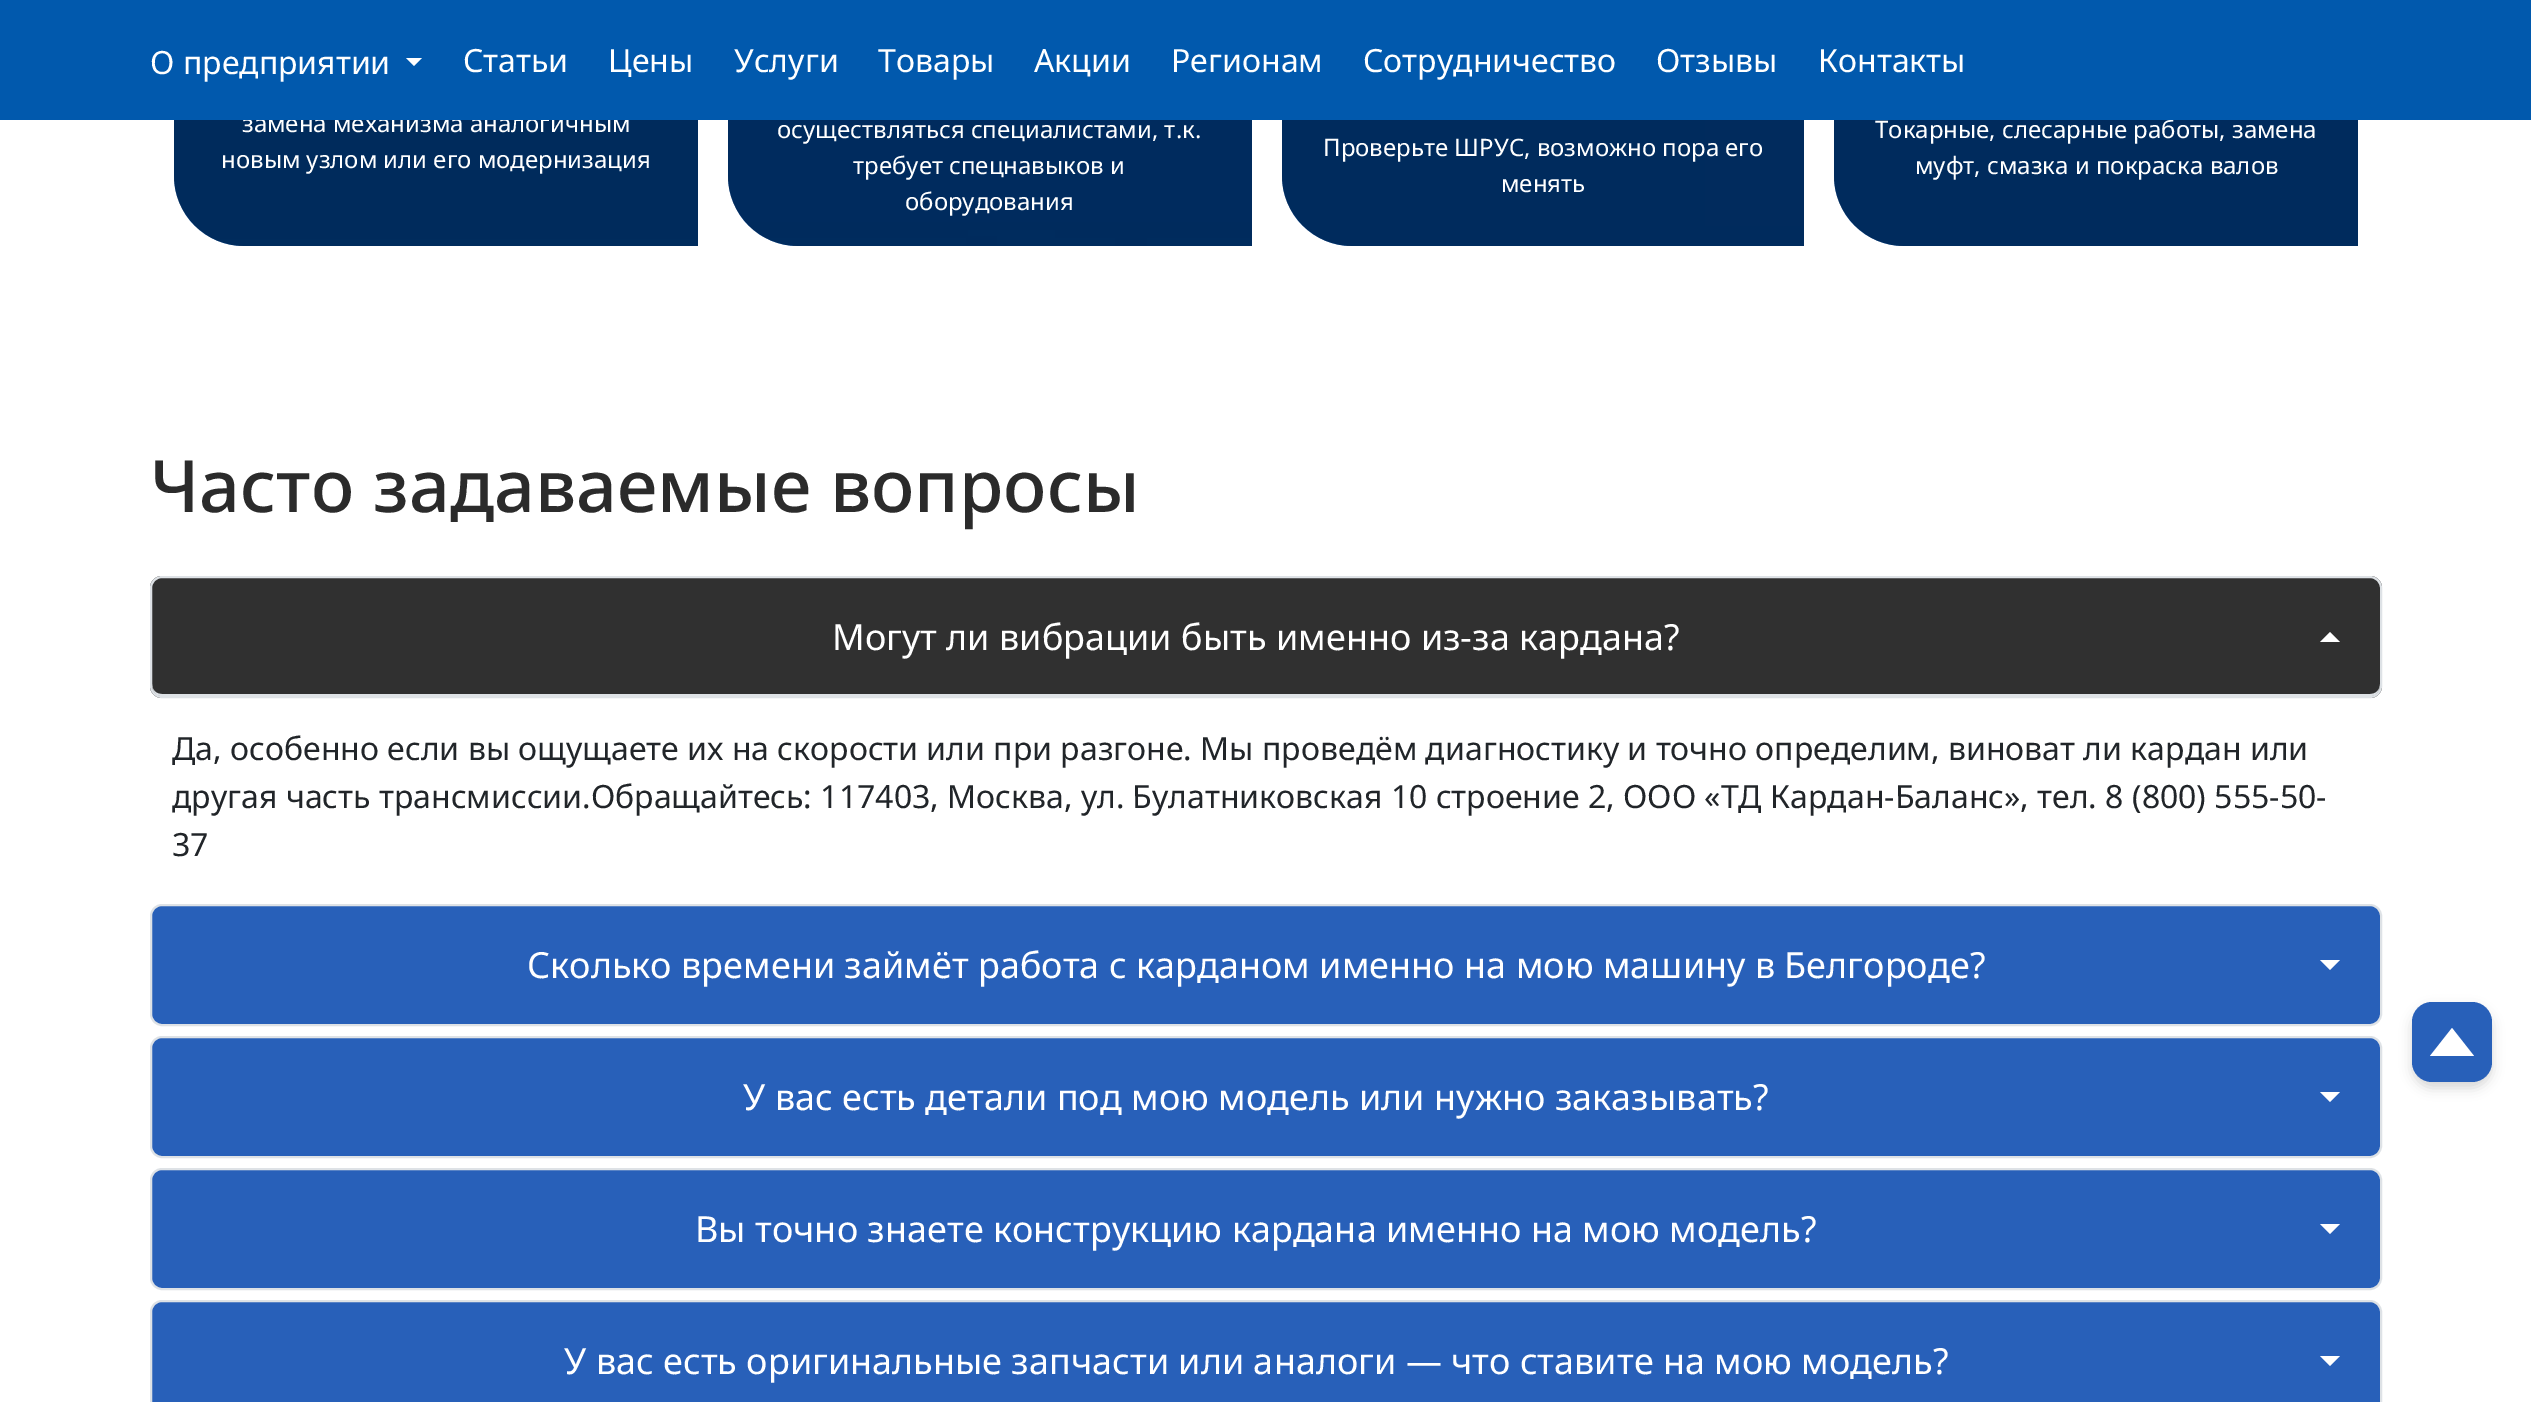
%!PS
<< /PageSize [2531 1402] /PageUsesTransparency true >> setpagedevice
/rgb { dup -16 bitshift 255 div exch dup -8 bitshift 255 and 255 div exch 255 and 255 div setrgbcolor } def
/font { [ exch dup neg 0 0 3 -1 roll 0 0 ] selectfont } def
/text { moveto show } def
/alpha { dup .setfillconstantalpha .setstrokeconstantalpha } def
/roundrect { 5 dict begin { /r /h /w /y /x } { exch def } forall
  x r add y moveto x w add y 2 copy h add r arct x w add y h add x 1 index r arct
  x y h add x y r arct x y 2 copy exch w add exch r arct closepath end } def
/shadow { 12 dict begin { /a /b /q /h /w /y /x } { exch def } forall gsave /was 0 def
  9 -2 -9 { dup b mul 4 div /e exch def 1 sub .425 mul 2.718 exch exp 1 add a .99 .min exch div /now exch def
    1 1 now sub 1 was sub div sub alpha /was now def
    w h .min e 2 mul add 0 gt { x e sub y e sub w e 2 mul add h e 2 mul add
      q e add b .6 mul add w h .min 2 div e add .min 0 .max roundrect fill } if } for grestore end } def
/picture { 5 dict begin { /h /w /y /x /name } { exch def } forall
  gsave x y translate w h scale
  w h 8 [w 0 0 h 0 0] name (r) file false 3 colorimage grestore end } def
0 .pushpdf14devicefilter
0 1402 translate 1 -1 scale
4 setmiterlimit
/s1 { /NotoSans-Regular 24 font 16#FFFFFF rgb } def
/s2 { /NotoSans-Regular 32 font 16#FFFFFF rgb } def
/s3 { /NotoSans-Medium 72 font 16#2B2B2B rgb } def
/s4 { /NotoSans-Regular 36 font 16#FFFFFF rgb } def
/s5 { /NotoSans-Regular 32 font 16#212529 rgb } def
16#FFFFFF rgb
0 0 2531 1402 rectfill
(pic1.raw) 174 120 524 126 picture
0.6 alpha
16#000000 rgb
174 -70 moveto 628 -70 lineto 666.5 -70 698 -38.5 698 0 curveto 698 246 lineto 244 246 lineto 205.5 246 174 214.5 174 176 curveto closepath fill
1 alpha
s1
(замена механизма аналогичным) 242 132 text
(pic2.raw) 728 120 524 126 picture
0.6 alpha
16#000000 rgb
728 -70 moveto 1182 -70 lineto 1220.5 -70 1252 -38.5 1252 0 curveto 1252 246 lineto 798 246 lineto 759.5 246 728 214.5 728 176 curveto closepath fill
1 alpha
(pic3.raw) 1282 120 522 126 picture
0.6 alpha
1282 -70 moveto 1734 -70 lineto 1772.5 -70 1804 -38.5 1804 0 curveto 1804 246 lineto 1352 246 lineto 1313.5 246 1282 214.5 1282 176 curveto closepath fill
1 alpha
(pic4.raw) 1834 120 524 126 picture
0.6 alpha
1834 -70 moveto 2288 -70 lineto 2326.5 -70 2358 -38.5 2358 0 curveto 2358 246 lineto 1904 246 lineto 1865.5 246 1834 214.5 1834 176 curveto closepath fill
1 alpha
s1
(Токарные, слесарные работы, замена) 1875 138 text
16#0159AD rgb
0 0 2531 120 rectfill
s2
(О предприятии) 150 74 text
406 58 moveto 422 58 lineto 414 66 lineto closepath fill
(Статьи) 463 72 text
(Цены) 608 72 text
(Услуги) 734 72 text
(Товары) 878 72 text
(Акции) 1034 72 text
(Регионам) 1171 72 text
(Сотрудничество) 1363 72 text
(Отзывы) 1656 72 text
(Контакты) 1818 72 text
s1
(новым узлом или его модернизация) 221 168 text
(осуществляться специалистами, т.к.) 777 138 text
(требует спецнавыков и) 853 174 text
(оборудования) 905 210 text
(Проверьте ШРУС, возможно пора его) 1323 156 text
(менять) 1501 192 text
(муфт, смазка и покраска валов) 1915 174 text
s3
(Часто задаваемые вопросы) 150 512 text
16#303030 rgb
150 576 2232 122 12 roundrect fill
16#DEE2E6 rgb
152 684 moveto 152 690 155 696 162 696 curveto 2370 696 lineto 2377 696 2380 690 2380 684 curveto 2380 690 2376 694 2370 694 curveto 162 694 lineto 156 694 152 690 152 684 curveto closepath fill
2 setlinewidth
151 577 2230 120 11 roundrect stroke
s4
(Могут ли вибрации быть именно из-за кардана?) 832 650 text
2340 642 moveto 2320 642 lineto 2330 632 lineto closepath fill
s5
(Да, особенно если вы ощущаете их на скорости или при разгоне. Мы проведём диагностику и точно определим, виноват ли кардан или) 172 760 text
(другая часть трансмиссии.Обращайтесь: 117403, Москва, ул. Булатниковская 10 строение 2, ООО «ТД Кардан-Баланс», тел. 8 \(800\) 555-50-) 172 808 text
(37) 172 856 text
16#2860B9 rgb
151 905 2230 120 11 roundrect gsave fill grestore
16#DEE2E6 rgb
stroke
s4
(Сколько времени займёт работа с карданом именно на мою машину в Белгороде?) 527 978 text
2320 960 moveto 2340 960 lineto 2330 970 lineto closepath fill
16#2860B9 rgb
151 1037 2230 120 11 roundrect gsave fill grestore
16#DEE2E6 rgb
stroke
s4
(У вас есть детали под мою модель или нужно заказывать?) 743 1110 text
2320 1092 moveto 2340 1092 lineto 2330 1102 lineto closepath fill
16#2860B9 rgb
151 1169 2230 120 11 roundrect gsave fill grestore
16#DEE2E6 rgb
stroke
s4
(Вы точно знаете конструкцию кардана именно на мою модель?) 695 1242 text
2320 1224 moveto 2340 1224 lineto 2330 1234 lineto closepath fill
16#2860B9 rgb
151 1301 2230 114 11 roundrect gsave fill grestore
16#DEE2E6 rgb
stroke
s4
(У вас есть оригинальные запчасти или аналоги — что ставите на мою модель?) 564 1374 text
2320 1356 moveto 2340 1356 lineto 2330 1366 lineto closepath fill
16#000000 rgb
2412 1008 80 80 20 6 0.16 shadow
16#2860B9 rgb
2412 1002 80 80 20 roundrect fill
16#FFFFFF rgb
2474 1056 moveto 2430 1056 lineto 2452 1028 lineto closepath fill
.poppdf14devicefilter showpage
